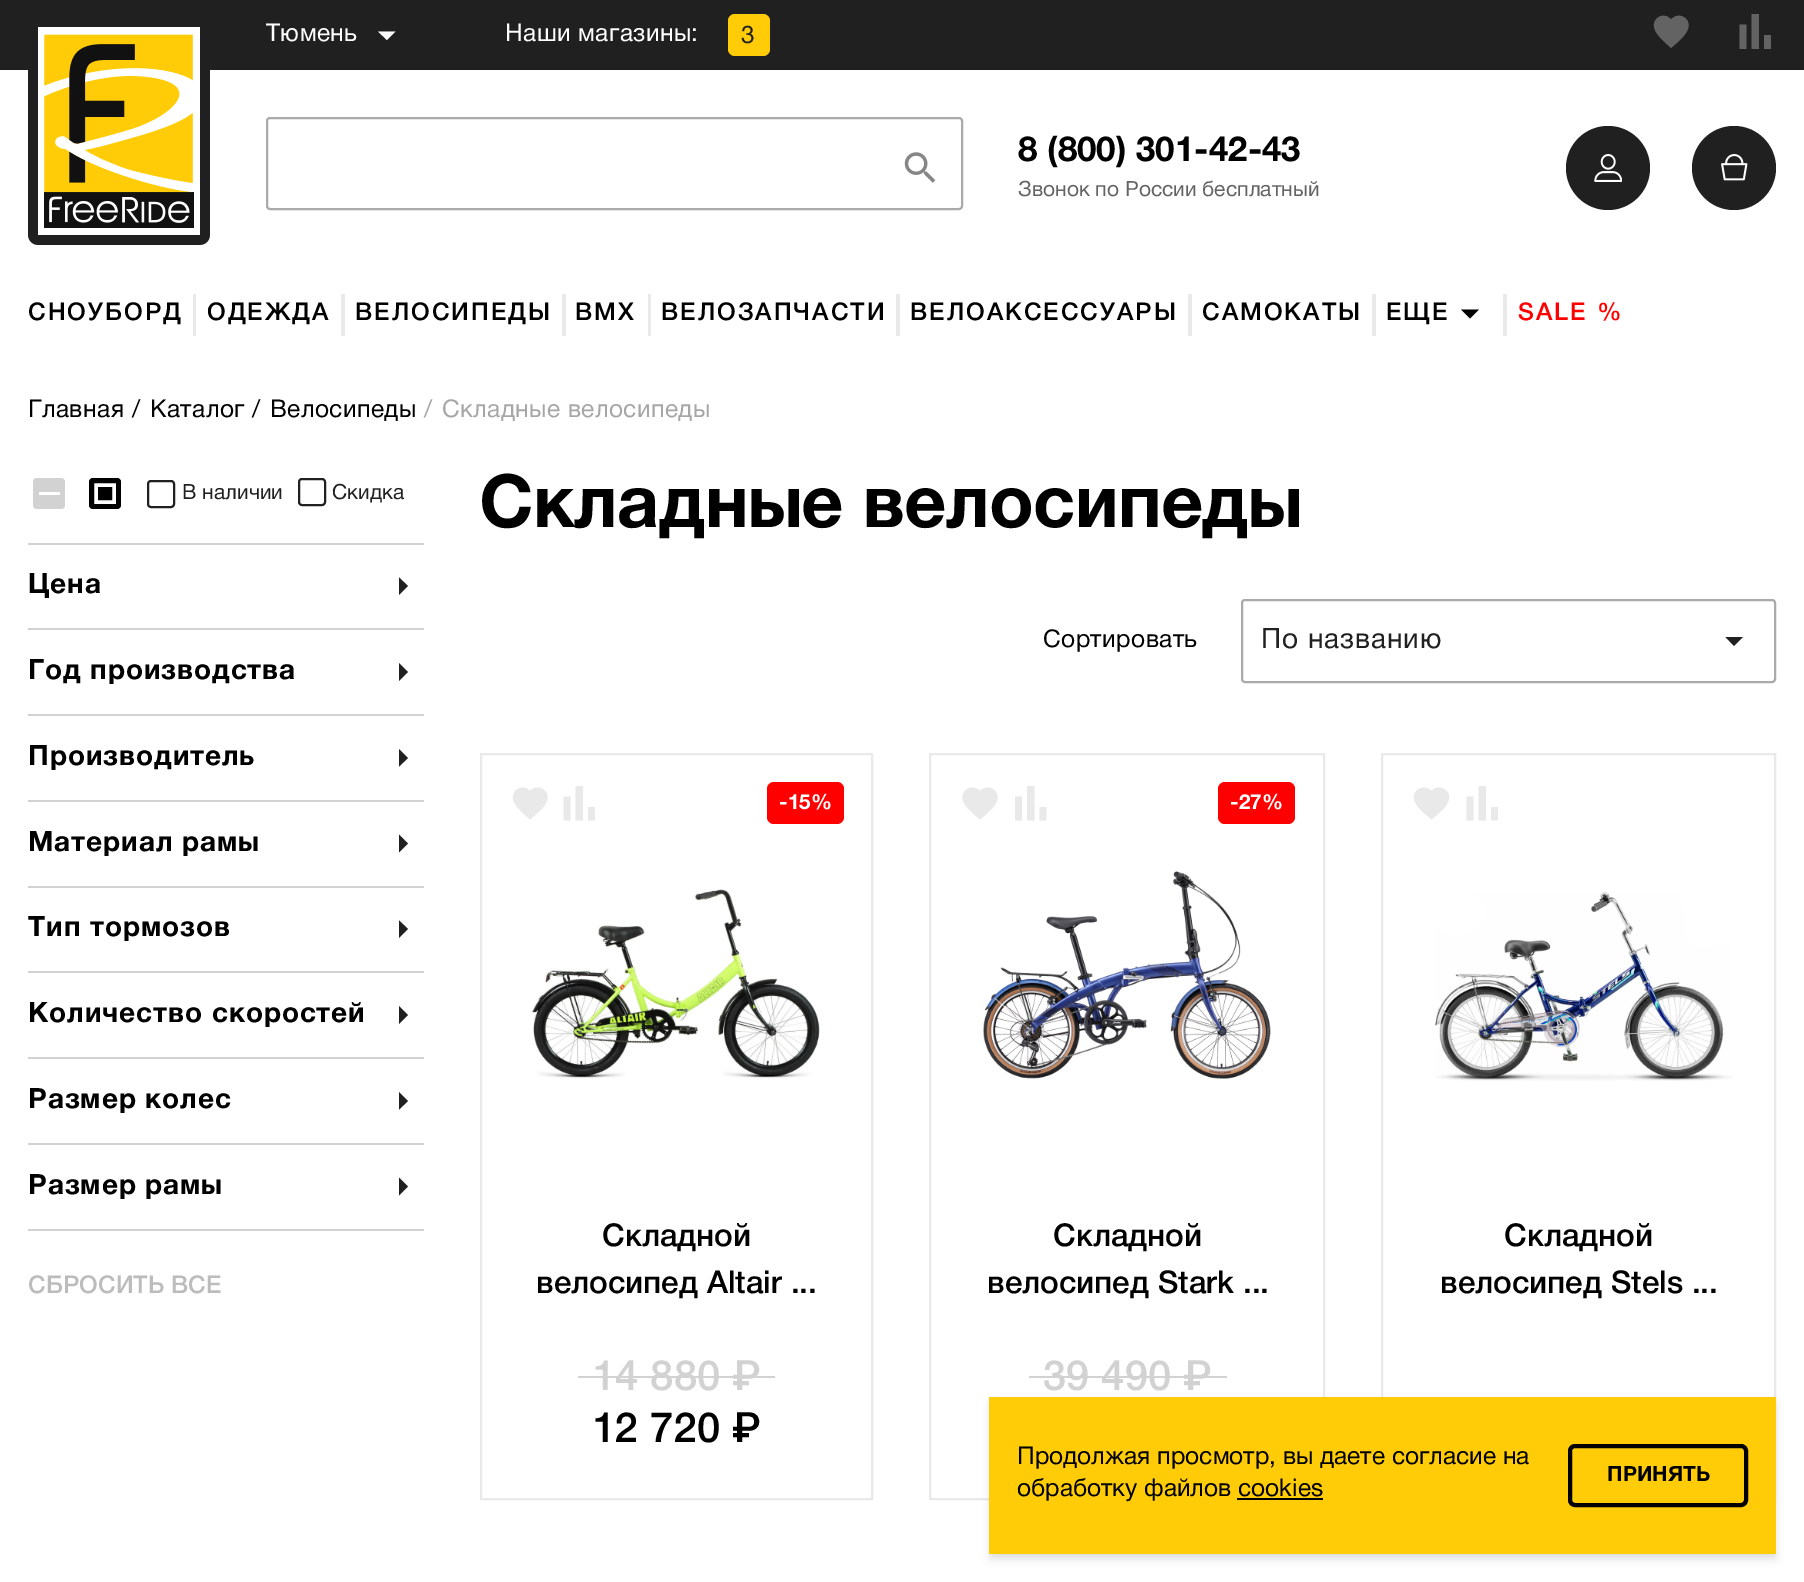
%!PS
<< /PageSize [1804 1582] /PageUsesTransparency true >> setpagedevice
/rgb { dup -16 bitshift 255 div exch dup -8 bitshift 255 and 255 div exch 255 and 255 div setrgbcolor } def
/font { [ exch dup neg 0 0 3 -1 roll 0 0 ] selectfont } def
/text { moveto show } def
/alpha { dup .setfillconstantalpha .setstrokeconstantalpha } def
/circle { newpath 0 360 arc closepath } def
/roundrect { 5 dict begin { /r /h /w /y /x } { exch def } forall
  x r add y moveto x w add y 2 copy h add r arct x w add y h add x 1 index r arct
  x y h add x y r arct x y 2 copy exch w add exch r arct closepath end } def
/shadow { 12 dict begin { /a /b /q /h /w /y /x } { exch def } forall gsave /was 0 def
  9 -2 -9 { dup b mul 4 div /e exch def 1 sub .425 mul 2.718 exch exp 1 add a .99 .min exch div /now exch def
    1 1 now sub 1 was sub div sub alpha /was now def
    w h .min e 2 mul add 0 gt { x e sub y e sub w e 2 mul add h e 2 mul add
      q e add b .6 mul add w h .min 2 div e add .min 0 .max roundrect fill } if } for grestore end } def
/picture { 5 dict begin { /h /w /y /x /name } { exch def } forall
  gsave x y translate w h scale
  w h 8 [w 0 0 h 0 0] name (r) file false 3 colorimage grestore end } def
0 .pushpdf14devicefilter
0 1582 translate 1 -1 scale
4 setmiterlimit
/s1 { /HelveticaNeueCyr-Bold 35 font 16#000000 rgb } def
/s2 { /HelveticaNeueCyr-Regular 21 font 16#636363 rgb } def
/s3 { /HelveticaNeueCyr-Regular 21 font 16#202020 rgb } def
/s4 { /HelveticaNeueCyr-Medium 24.5 font 16#BCBCBC rgb } def
/s5 { /HelveticaNeueCyr-Bold 21 font 16#FFFFFF rgb } def
/s6 { /HelveticaNeueCyr-Medium 31.5 font 16#000000 rgb } def
/s7 { /HelveticaNeueCyr-Medium 42 font 16#D2D2D2 rgb } def
/s8 { /Roboto-Medium 42 font 16#D2D2D2 rgb } def
/s9 { /HelveticaNeueCyr-Medium 42 font 16#000000 rgb } def
/s10 { /Roboto-Medium 42 font 16#000000 rgb } def
/s11 { /HelveticaNeueCyr-Regular 24.5 font 16#000000 rgb } def
/s12 { /HelveticaNeueCyr-Bold 21 font 16#000000 rgb } def
16#FFFFFF rgb
0 0 1804 1582 rectfill
16#202020 rgb
0 0 1804 70 rectfill
/HelveticaNeueCyr-Regular 24.5 font
16#FFFFFF rgb
266 41 moveto 0.4 0 (Тюмень) ashow
378 31.5 moveto 387 40 lineto 395.5 31.5 lineto closepath fill
505 41 moveto 0.4 0 (Наши магазины:) ashow
16#FFCC07 rgb
728 14 42 42 7 roundrect fill
16#202020 rgb
741 43 moveto 0.4 0 (3) ashow
16#636363 rgb
1671 48 moveto 1666 43 1658 37 1655 30 curveto 1650 19 1663.5 10.5 1671 19.5 curveto 1679 10.5 1692.5 19 1687.5 30 curveto 1684.5 37 1676.5 43 1671 48 curveto closepath fill
1739.5 49 moveto 1739.5 24.5 lineto 1746.5 24.5 lineto 1746.5 49 lineto closepath 1751.5 49 moveto 1751.5 14 lineto 1759 14 lineto 1759 49 lineto closepath 1764 49 moveto 1764 35 lineto 1771 35 lineto 1771 49 lineto closepath fill
(pic1.raw) 28 27 182 218 picture
16#AAAAAA rgb
2 setlinewidth
267 118 695 91 3 roundrect stroke
(pic2.raw) 904 152 32 31 picture
s1
(8 \(800\) 301-42-43) 1018 161 text
s2
(Звонок по России бесплатный) 1018 196 text
16#202020 rgb
1608 168 42 circle fill
(pic3.raw) 1594 154 28 28 picture
1734 168 42 circle fill
(pic4.raw) 1721 154 27 27 picture
/HelveticaNeueCyr-Medium 24.5 font
16#000000 rgb
28 320 moveto 2 0 (СНОУБОРД) ashow
16#E9E9E9 rgb
193 294 3 42 rectfill
16#000000 rgb
207 320 moveto 2 0 (ОДЕЖДА) ashow
16#E9E9E9 rgb
341 294 4 42 rectfill
16#000000 rgb
355 320 moveto 2 0 (ВЕЛОСИПЕДЫ) ashow
16#E9E9E9 rgb
562 294 4 42 rectfill
16#000000 rgb
575 320 moveto 2 0 (BMX) ashow
16#E9E9E9 rgb
648 294 3 42 rectfill
16#000000 rgb
661 320 moveto 2 0 (ВЕЛОЗАПЧАСТИ) ashow
16#E9E9E9 rgb
896 294 4 42 rectfill
16#000000 rgb
910 320 moveto 2 0 (ВЕЛОАКСЕССУАРЫ) ashow
16#E9E9E9 rgb
1188 294 4 42 rectfill
16#000000 rgb
1202 320 moveto 2 0 (САМОКАТЫ) ashow
16#E9E9E9 rgb
1372 294 4 42 rectfill
16#000000 rgb
1386 320 moveto 2 0 (ЕЩЕ) ashow
1461 309.5 moveto 1470 318.5 lineto 1479 309.5 lineto closepath fill
16#E9E9E9 rgb
1503 294 4 42 rectfill
16#FF0000 rgb
1518 320 moveto 2 0 (SALE %) ashow
/HelveticaNeueCyr-Regular 24.5 font
16#000000 rgb
28 417 moveto 0.4 0 (Главная) ashow
132 417 moveto 0.4 0 (/) ashow
150 417 moveto 0.4 0 (Каталог) ashow
252 417 moveto 0.4 0 (/) ashow
270 417 moveto 0.4 0 (Велосипеды) ashow
16#A6A6A6 rgb
424 417 moveto 0.4 0 (/) ashow
442 417 moveto 0.4 0 (Складные велосипеды) ashow
16#D2D2D2 rgb
28 543 396 2 rectfill
33 478 32 31 4 roundrect fill
16#FFFFFF rgb
39 492 21 3 rectfill
16#000000 rgb
89 478 32 31 4 roundrect fill
16#FFFFFF rgb
3.5 setlinewidth
96 485 moveto 114 485 lineto 114 502 lineto 96 502 lineto closepath stroke
16#202020 rgb
2 setlinewidth
148 481 26 26 3 roundrect stroke
s3
(В наличии) 182 499 text
299 479 26 26 3 roundrect stroke
(Скидка) 332 499 text
16#D2D2D2 rgb
28 628 396 2 rectfill
/HelveticaNeueCyr-Bold 28 font
16#000000 rgb
28 593 moveto 0.9 0 (Цена) ashow
16#202020 rgb
399 595 moveto 408 586 lineto 399 577.5 lineto closepath fill
16#D2D2D2 rgb
28 714 396 2 rectfill
16#000000 rgb
28 679 moveto 0.9 0 (Год производства) ashow
16#202020 rgb
399 681 moveto 408 672 lineto 399 663 lineto closepath fill
16#D2D2D2 rgb
28 800 396 2 rectfill
16#000000 rgb
28 765 moveto 0.9 0 (Производитель) ashow
16#202020 rgb
399 766.5 moveto 408 758 lineto 399 749 lineto closepath fill
16#D2D2D2 rgb
28 886 396 2 rectfill
16#000000 rgb
28 851 moveto 0.9 0 (Материал рамы) ashow
16#202020 rgb
399 852.5 moveto 408 843.5 lineto 399 834.5 lineto closepath fill
16#D2D2D2 rgb
28 971 396 2 rectfill
16#000000 rgb
28 936 moveto 0.9 0 (Тип тормозов) ashow
16#202020 rgb
399 938 moveto 408 929 lineto 399 920.5 lineto closepath fill
16#D2D2D2 rgb
28 1057 396 2 rectfill
16#000000 rgb
28 1022 moveto 0.9 0 (Количество скоростей) ashow
16#202020 rgb
399 1024 moveto 408 1015 lineto 399 1006 lineto closepath fill
16#D2D2D2 rgb
28 1143 396 2 rectfill
16#000000 rgb
28 1108 moveto 0.9 0 (Размер колес) ashow
16#202020 rgb
399 1109.5 moveto 408 1101 lineto 399 1092 lineto closepath fill
16#D2D2D2 rgb
28 1229 396 2 rectfill
16#000000 rgb
28 1194 moveto 0.9 0 (Размер рамы) ashow
16#202020 rgb
399 1195.5 moveto 408 1186.5 lineto 399 1177.5 lineto closepath fill
s4
(СБРОСИТЬ ВСЕ) 28 1293 text
/HelveticaNeueCyr-Bold 73.5 font
16#000000 rgb
479 527 moveto -0.6 0 (Складные велосипеды) ashow
/HelveticaNeueCyr-Regular 24.5 font
1043 647 moveto 0.4 0 (Сортировать) ashow
16#AAAAAA rgb
1242 600 533 82 3 roundrect stroke
/HelveticaNeueCyr-Regular 28 font
16#202020 rgb
1261 648 moveto 0.9 0 (По названию) ashow
1725.5 637 moveto 1734 646 lineto 1743 637 lineto closepath fill
16#E9E9E9 rgb
481 754 391 745 rectstroke
530 819.5 moveto 525 814.5 517 809 514 802 curveto 509 791 522.5 782.5 530 791 curveto 538 782.5 551.5 791 546.5 802 curveto 543.5 809 535.5 814.5 530 819.5 curveto closepath fill
563.5 820.5 moveto 563.5 796.5 lineto 570.5 796.5 lineto 570.5 820.5 lineto closepath 575.5 820.5 moveto 575.5 786 lineto 583 786 lineto 583 820.5 lineto closepath 588 820.5 moveto 588 807 lineto 595 807 lineto 595 820.5 lineto closepath fill
16#FF0000 rgb
767 782 77 42 7 roundrect fill
s5
(-15%) 779 809 text
(pic5.raw) 532 889 288 190 picture
s6
(Складной) 602 1246 text
(велосипед Altair ...) 536 1293 text
s7
(14 880) 592 1390 text
s8
(₽) 732 1390 text
578 1376 197 2 rectfill
s9
(12 720) 592 1442 text
s10
(₽) 732 1442 text
16#E9E9E9 rgb
930 754 394 745 rectstroke
980 819.5 moveto 974.5 814.5 966.5 809 963.5 802 curveto 958.5 791 972 782.5 980 791 curveto 988 782.5 1001.5 791 996.5 802 curveto 993.5 809 985.5 814.5 980 819.5 curveto closepath fill
1015 820.5 moveto 1015 796.5 lineto 1022 796.5 lineto 1022 820.5 lineto closepath 1027 820.5 moveto 1027 786 lineto 1034.5 786 lineto 1034.5 820.5 lineto closepath 1039.5 820.5 moveto 1039.5 807 lineto 1046.5 807 lineto 1046.5 820.5 lineto closepath fill
16#FF0000 rgb
1218 782 77 42 7 roundrect fill
s5
(-27%) 1230 809 text
(pic6.raw) 983 871 288 208 picture
s6
(Складной) 1053 1246 text
(велосипед Stark ...) 987 1293 text
s7
(39 490) 1043 1390 text
s8
(₽) 1183 1390 text
1029 1376 198 2 rectfill
16#E9E9E9 rgb
1382 754 393 745 rectstroke
1431.5 819.5 moveto 1426 814.5 1418 809 1415 802 curveto 1410 791 1423.5 782.5 1431.5 791 curveto 1439.5 782.5 1453 791 1448 802 curveto 1445 809 1437 814.5 1431.5 819.5 curveto closepath fill
1466.5 820.5 moveto 1466.5 796.5 lineto 1473.5 796.5 lineto 1473.5 820.5 lineto closepath 1478.5 820.5 moveto 1478.5 786 lineto 1486 786 lineto 1486 820.5 lineto closepath 1491 820.5 moveto 1491 807 lineto 1498 807 lineto 1498 820.5 lineto closepath fill
(pic7.raw) 1435 892 297 189 picture
s6
(Складной) 1504 1246 text
(велосипед Stels ...) 1440 1293 text
991 1402 784 154 0 3.5 0.06 shadow
991 1405 784 154 0 5 0.1 shadow
16#FFCC07 rgb
989 1397 787 157 rectfill
s11
(Продолжая просмотр, вы даете согласие на) 1017 1464 text
(обработку файлов cookies) 1017 1496 text
1237 1498 86 2 rectfill
4 setlinewidth
1570 1446 176 59 5 roundrect stroke
s12
(ПРИНЯТЬ) 1607 1481 text
.poppdf14devicefilter showpage
